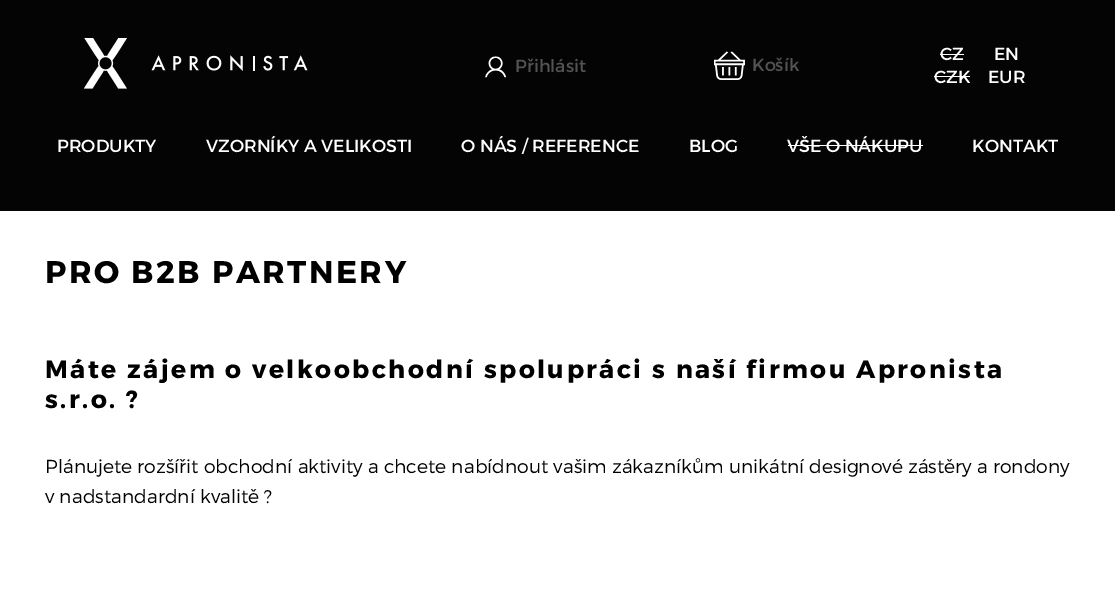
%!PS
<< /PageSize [1115 612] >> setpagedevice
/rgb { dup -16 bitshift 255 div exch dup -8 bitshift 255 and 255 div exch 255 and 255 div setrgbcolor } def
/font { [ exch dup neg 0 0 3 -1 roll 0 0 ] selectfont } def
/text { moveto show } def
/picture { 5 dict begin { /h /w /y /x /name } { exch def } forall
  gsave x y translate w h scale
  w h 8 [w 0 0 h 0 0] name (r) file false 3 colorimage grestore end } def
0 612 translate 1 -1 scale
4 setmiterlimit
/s1 { /Montserrat-Regular 17.5 font 16#535353 rgb } def
/s2 { /Montserrat-Regular 17.5 font 16#FFFFFF rgb } def
/s3 { /Montserrat-Light 18.75 font 16#000000 rgb } def
16#FFFFFF rgb
0 0 1115 612 rectfill
16#040404 rgb
0 0 1115 211 rectfill
(pic1.raw) 84 38 224 51 picture
(pic2.raw) 485 56 21 22 picture
s1
(Přihlásit) 515 72 text
(pic3.raw) 714 51 31 29 picture
(Košík) 752 71 text
s2
(CZ) 940 60 text
940 54 24 1 rectfill
(EN) 994 60 text
(CZK) 934 83 text
934 76 36 1 rectfill
(EUR) 988 83 text
(PRODUKTY) 57 152 text
(VZORNÍKY A VELIKOSTI) 206 152 text
(O NÁS / REFERENCE) 461 152 text
(BLOG) 689 152 text
(VŠE O NÁKUPU) 787 152 text
788 145 135 1 rectfill
(KONTAKT) 972 152 text
/Montserrat-Bold 31.25 font
16#000000 rgb
45 283 moveto 2.5 0 (PRO B2B PARTNERY) ashow
/Montserrat-Bold 25 font
45 378 moveto 2.5 0 (Máte zájem o velkoobchodní spolupráci s naší firmou Apronista) ashow
45 408 moveto 2.5 0 (s.r.o. ?) ashow
s3
(Plánujete rozšířit obchodní aktivity a chcete nabídnout vašim zákazníkům unikátní designové zástěry a rondony) 45 473 text
(v nadstandardní kvalitě ?) 45 503 text
showpage
